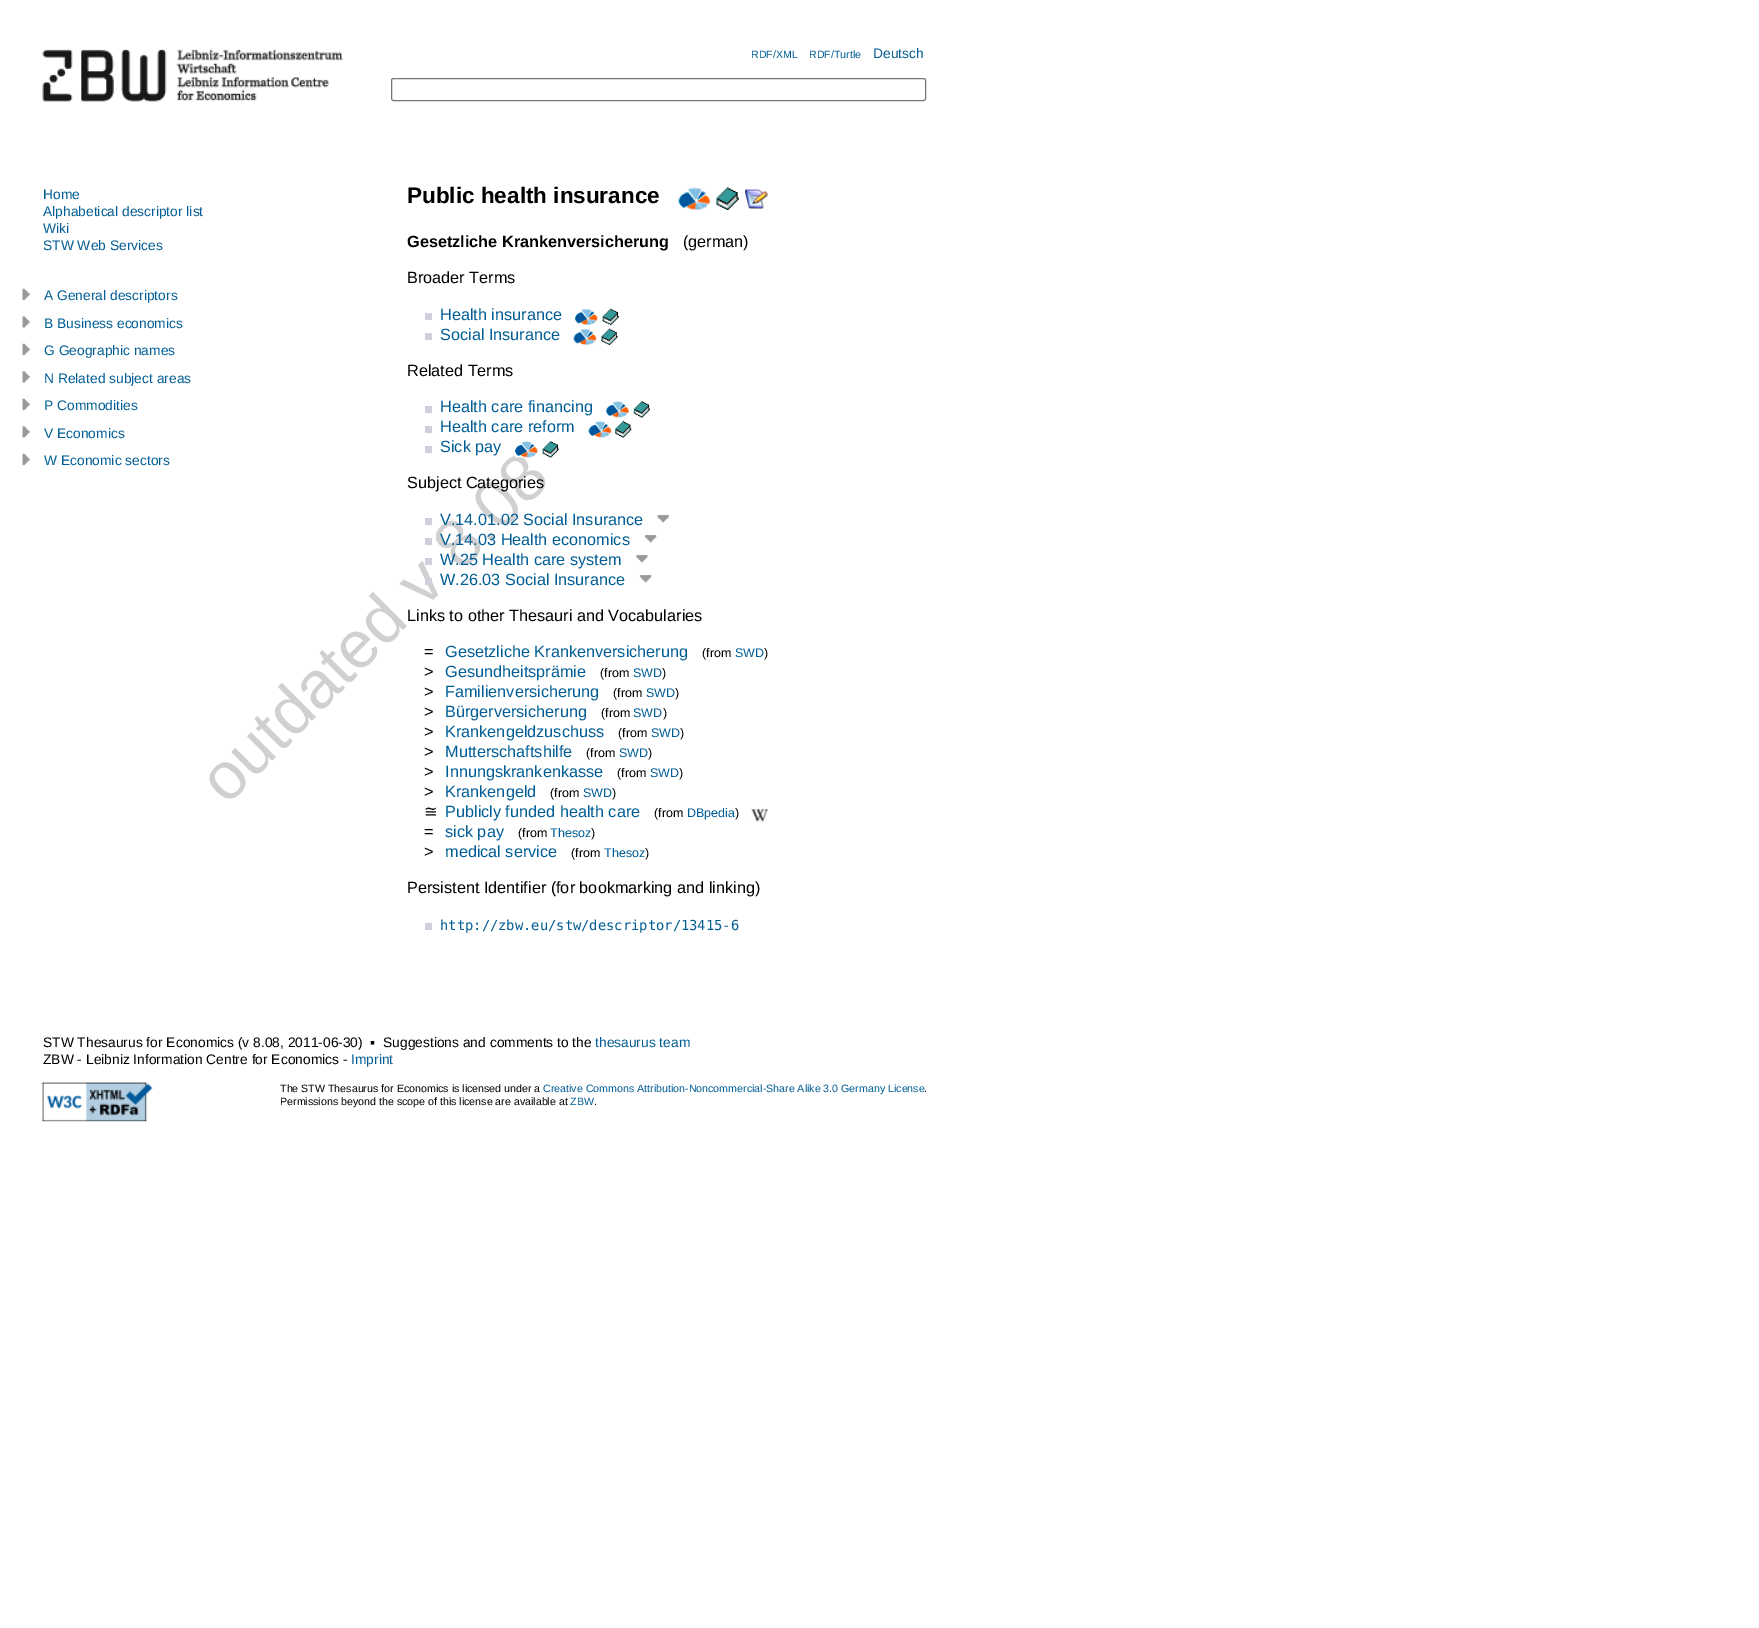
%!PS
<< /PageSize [1759 1628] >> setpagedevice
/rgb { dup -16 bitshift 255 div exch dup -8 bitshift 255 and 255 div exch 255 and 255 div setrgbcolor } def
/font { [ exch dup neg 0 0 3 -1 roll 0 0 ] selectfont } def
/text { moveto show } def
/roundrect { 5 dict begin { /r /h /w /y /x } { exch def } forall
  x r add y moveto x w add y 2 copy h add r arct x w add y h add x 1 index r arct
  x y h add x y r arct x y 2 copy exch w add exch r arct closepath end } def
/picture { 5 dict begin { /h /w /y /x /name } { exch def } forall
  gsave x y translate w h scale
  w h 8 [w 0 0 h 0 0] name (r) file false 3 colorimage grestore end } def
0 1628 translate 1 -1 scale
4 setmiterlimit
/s1 { /LiberationSans-Regular 10.65 font 16#005D95 rgb } def
/s2 { /LiberationSans-Regular 13.8 font 16#005D95 rgb } def
/s3 { /LiberationSans-Bold 22.5 font 16#000000 rgb } def
/s4 { /LiberationSans-Bold 16.25 font 16#000000 rgb } def
/s5 { /LiberationSans-Regular 16.25 font 16#000000 rgb } def
/s6 { /LiberationSans-Regular 16.25 font 16#005D95 rgb } def
/s7 { /LiberationSans-Regular 12.5 font 16#000000 rgb } def
/s8 { /LiberationSans-Regular 12.5 font 16#005D95 rgb } def
/s9 { /DejaVuSans-Regular 16.25 font 16#000000 rgb } def
/s10 { /DejaVuSansMono-Regular 13.8 font 16#005D95 rgb } def
/s11 { /LiberationSans-Regular 13.8 font 16#000000 rgb } def
/s12 { /LiberationSans-Regular 10.65 font 16#000000 rgb } def
16#FFFFFF rgb
0 0 1759 1628 rectfill
(pic1.raw) 42 49 301 53 picture
s1
(RDF/XML) 751 58 text
(RDF/Turtle) 809 58 text
s2
(Deutsch) 873 58 text
16#767676 rgb
391.5 78.5 534 22 2 roundrect stroke
s2
(Home) 43 199 text
(Alphabetical descriptor list) 43 216 text
(Wiki) 43 233 text
(STW Web Services) 43 250 text
(pic2.raw) 22 288 9 13 picture
(A General descriptors) 44 300 text
(pic3.raw) 22 316 9 12 picture
(B Business economics) 44 328 text
(pic4.raw) 22 343 9 13 picture
(G Geographic names) 44 355 text
(pic3.raw) 22 371 9 12 picture
(N Related subject areas) 44 383 text
(pic4.raw) 22 398 9 13 picture
(P Commodities) 44 410 text
(pic3.raw) 22 426 9 12 picture
(V Economics) 44 438 text
(pic4.raw) 22 453 9 13 picture
(W Economic sectors) 44 465 text
s3
(Public health insurance) 407 203 text
(pic5.raw) 678 187 32 23 picture
(pic6.raw) 716 187 23 23 picture
(pic7.raw) 745 189 23 20 picture
s4
(Gesetzliche Krankenversicherung) 407 247 text
s5
(\(german\)) 683 247 text
(Broader Terms) 407 283 text
16#D1CFDD rgb
425 313 7 7 rectfill
s6
(Health insurance) 440 320 text
(pic8.raw) 575 308 23 17 picture
(pic9.raw) 602 308 17 17 picture
16#D1CFDD rgb
425 333 7 7 rectfill
s6
(Social Insurance) 440 340 text
(pic10.raw) 573 328 24 17 picture
(pic11.raw) 601 328 17 17 picture
s5
(Related Terms) 407 376 text
16#D1CFDD rgb
425 406 7 7 rectfill
s6
(Health care financing) 440 412 text
(pic12.raw) 606 401 23 17 picture
(pic13.raw) 633 401 17 17 picture
16#D1CFDD rgb
425 426 7 7 rectfill
s6
(Health care reform) 440 432 text
(pic14.raw) 588 421 24 17 picture
(pic15.raw) 615 421 17 17 picture
16#D1CFDD rgb
425 446 7 7 rectfill
s6
(Sick pay) 440 452 text
/LiberationSans-Regular 66.75 font
16#D0D0D0 rgb
gsave 227 806 translate -45 rotate 0 0 moveto (outdated v 8.08) show grestore
(pic16.raw) 515 441 23 17 picture
(pic17.raw) 542 441 17 17 picture
s5
(Subject Categories) 407 488 text
16#D1CFDD rgb
425 518 7 7 rectfill
s6
(V.14.01.02 Social Insurance) 440 525 text
(pic18.raw) 657 514 12 9 picture
16#D1CFDD rgb
425 538 7 7 rectfill
s6
(V.14.03 Health economics) 440 545 text
(pic19.raw) 644 534 13 9 picture
16#D1CFDD rgb
425 558 7 7 rectfill
s6
(W.25 Health care system) 440 565 text
(pic20.raw) 636 554 12 9 picture
16#D1CFDD rgb
425 578 7 7 rectfill
s6
(W.26.03 Social Insurance) 440 585 text
(pic19.raw) 639 574 13 9 picture
s5
(Links to other Thesauri and Vocabularies) 407 621 text
(=) 424 657 text
s6
(Gesetzliche Krankenversicherung) 445 657 text
s7
(\(from) 702 657 text
s8
(SWD) 735 657 text
s7
(\)) 764 657 text
s5
(>) 424 677 text
s6
(Gesundheitsprämie) 445 677 text
s7
(\(from) 600 677 text
s8
(SWD) 633 677 text
s7
(\)) 662 677 text
s5
(>) 424 697 text
s6
(Familienversicherung) 445 697 text
s7
(\(from) 613 697 text
s8
(SWD) 646 697 text
s7
(\)) 675 697 text
s5
(>) 424 717 text
s6
(Bürgerversicherung) 445 717 text
s7
(\(from) 601 717 text
s8
(SWD) 633 717 text
s7
(\)) 663 717 text
s5
(>) 424 737 text
s6
(Krankengeldzuschuss) 445 737 text
s7
(\(from) 618 737 text
s8
(SWD) 651 737 text
s7
(\)) 680 737 text
s5
(>) 424 757 text
s6
(Mutterschaftshilfe) 445 757 text
s7
(\(from) 586 757 text
s8
(SWD) 619 757 text
s7
(\)) 648 757 text
s5
(>) 424 777 text
s6
(Innungskrankenkasse) 445 777 text
s7
(\(from) 617 777 text
s8
(SWD) 650 777 text
s7
(\)) 679 777 text
s5
(>) 424 797 text
s6
(Krankengeld) 445 797 text
s7
(\(from) 550 797 text
s8
(SWD) 583 797 text
s7
(\)) 612 797 text
s9
(≅) 424 817 text
s6
(Publicly funded health care) 445 817 text
s7
(\(from) 654 817 text
s8
(DBpedia) 687 817 text
s7
(\)) 735 817 text
(pic21.raw) 751 809 17 13 picture
s5
(=) 424 837 text
s6
(sick pay) 445 837 text
s7
(\(from) 518 837 text
s8
(Thesoz) 550 837 text
s7
(\)) 591 837 text
s5
(>) 424 857 text
s6
(medical service) 445 857 text
s7
(\(from) 571 857 text
s8
(Thesoz) 604 857 text
s7
(\)) 645 857 text
s5
(Persistent Identifier \(for bookmarking and linking\)) 407 893 text
16#D1CFDD rgb
425 923 7 7 rectfill
s10
(http://zbw.eu/stw/descriptor/13415-6) 440 930 text
s11
(STW Thesaurus for Economics \(v 8.08, 2011-06-30\)) 43 1047 text
(▪) 370 1047 text
(Suggestions and comments to the) 383 1047 text
s2
(thesaurus team) 595 1047 text
s11
(ZBW - Leibniz Information Centre for Economics -) 43 1064 text
s2
(Imprint) 351 1064 text
(pic22.raw) 42 1082 111 40 picture
s12
(The STW Thesaurus for Economics is licensed under a) 280 1092 text
s1
(Creative Commons Attribution-Noncommercial-Share Alike 3.0 Germany License) 543 1092 text
s12
(.) 924 1092 text
(Permissions beyond the scope of this license are available at) 280 1105 text
s1
(ZBW) 570 1105 text
s12
(.) 594 1105 text
showpage
